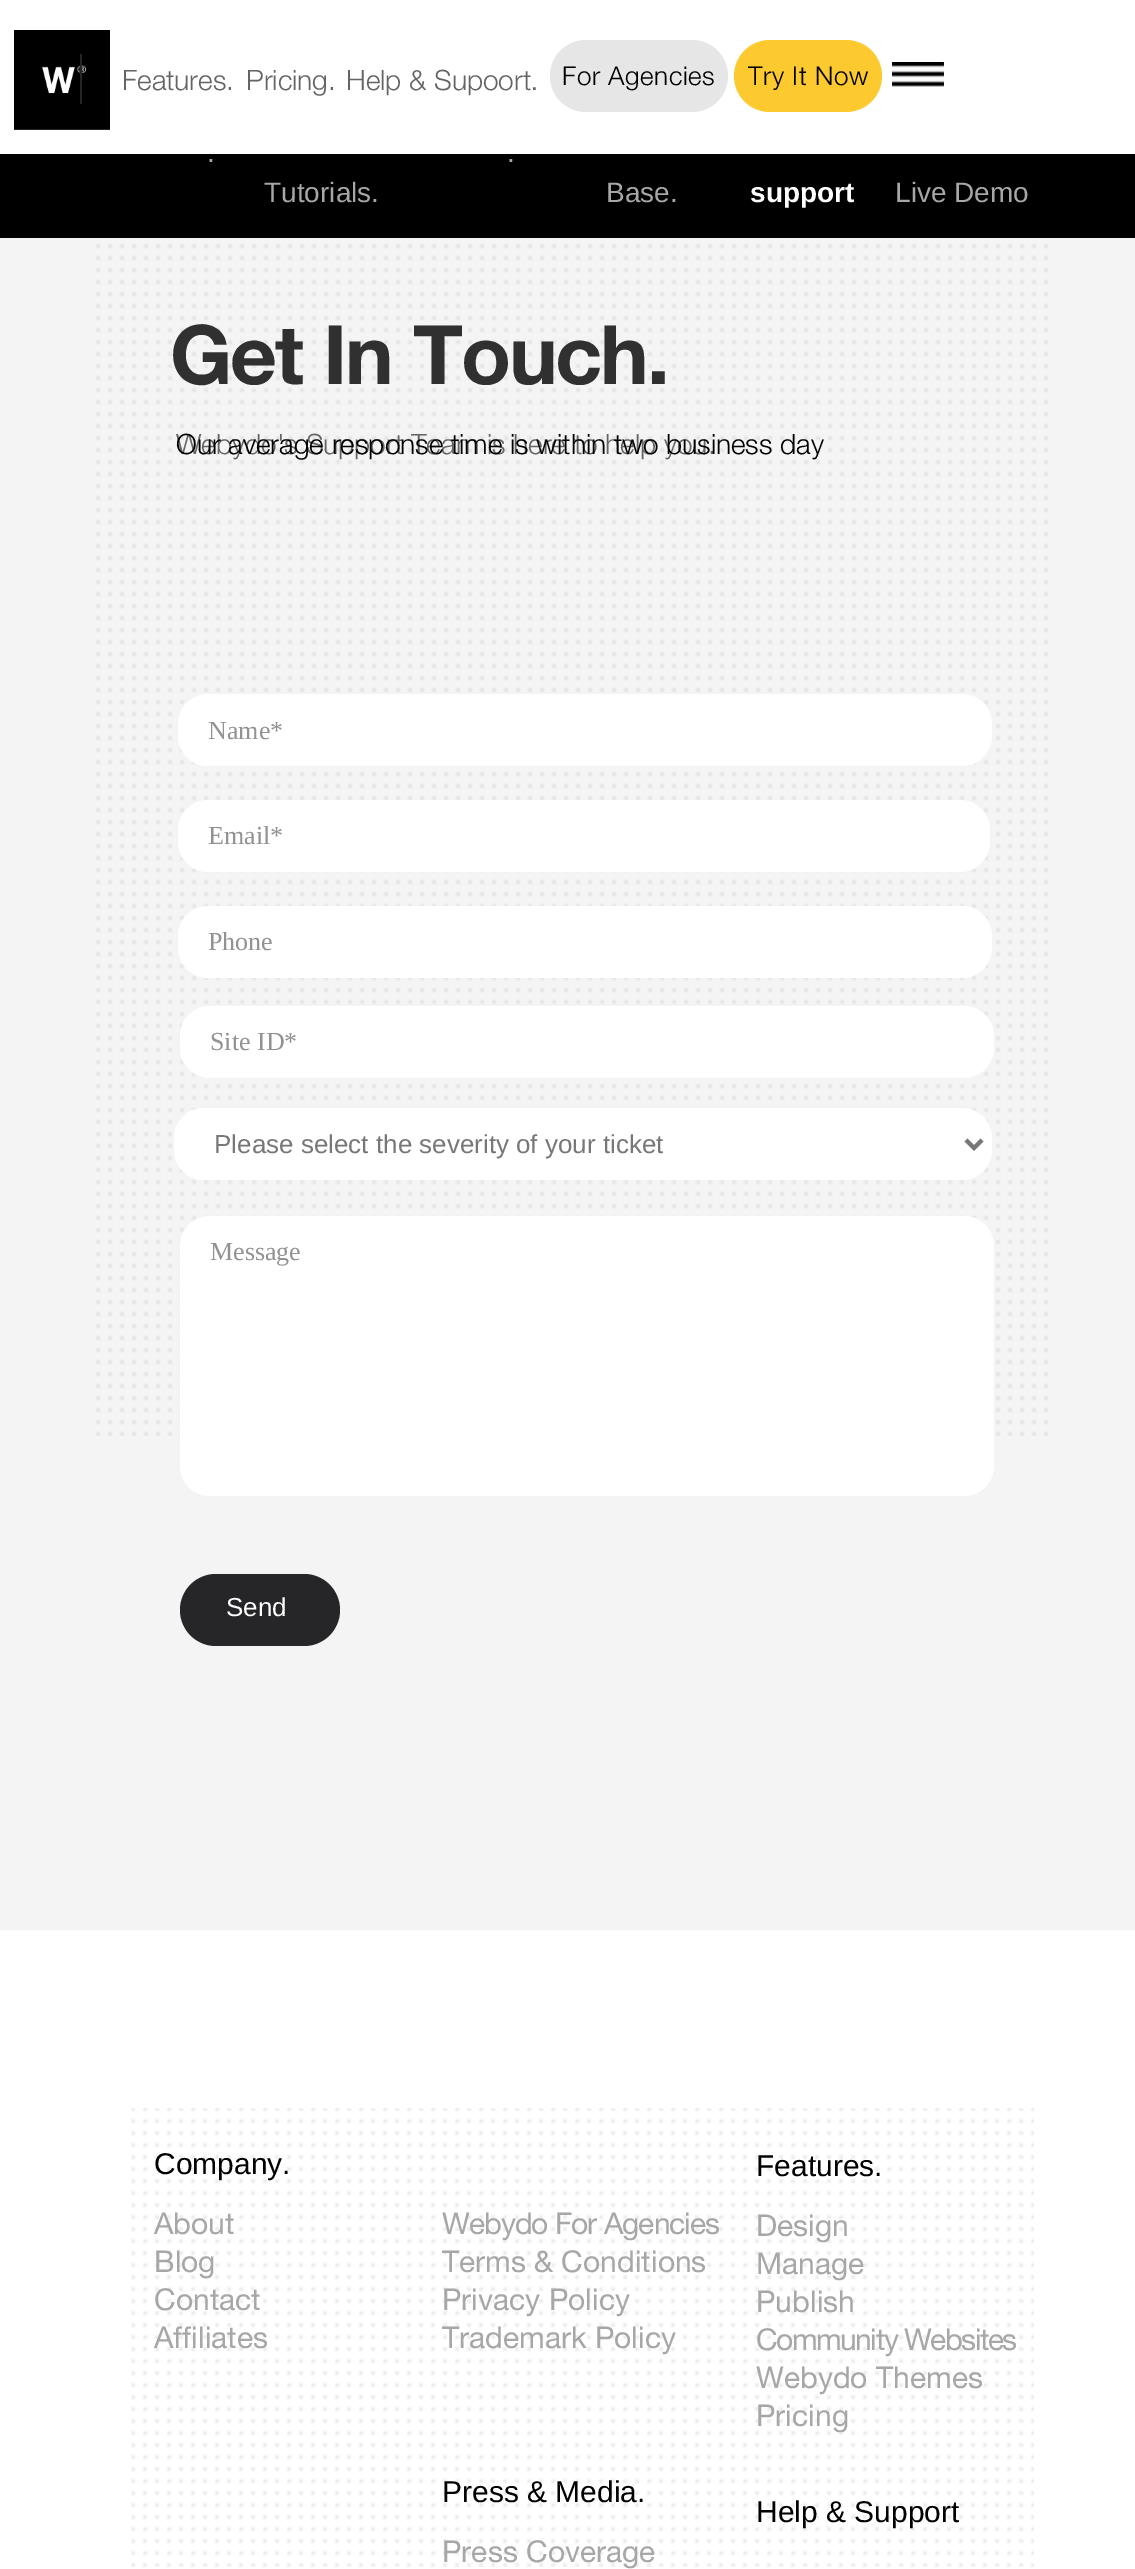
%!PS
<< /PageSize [1135 2569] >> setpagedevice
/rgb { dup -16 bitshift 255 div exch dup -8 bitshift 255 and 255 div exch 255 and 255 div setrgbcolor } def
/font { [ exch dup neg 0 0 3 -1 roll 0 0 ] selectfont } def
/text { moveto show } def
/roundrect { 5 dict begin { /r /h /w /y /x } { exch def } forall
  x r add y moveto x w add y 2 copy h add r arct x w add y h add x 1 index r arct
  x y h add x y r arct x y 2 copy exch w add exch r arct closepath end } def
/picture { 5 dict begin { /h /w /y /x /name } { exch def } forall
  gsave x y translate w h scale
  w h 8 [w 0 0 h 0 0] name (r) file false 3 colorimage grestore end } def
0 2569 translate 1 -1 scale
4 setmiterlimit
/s1 { /HelveticaNeue-Light 28 font 16#646464 rgb } def
/s2 { /HelveticaNeue-Regular 24 font 16#646464 rgb } def
/s3 { /LiberationSans-Regular 28 font 16#A7A7A7 rgb } def
/s4 { /LiberationSans-Bold 28 font 16#FFFFFF rgb } def
/s5 { /HelveticaNeue-Light 28 font 16#000000 rgb } def
/s6 { /LiberationSerif-Regular 26 font 16#929292 rgb } def
/s7 { /LiberationSans-Regular 26 font 16#777777 rgb } def
/s8 { /LiberationSans-Regular 26 font 16#FFFFFF rgb } def
/s9 { /LiberationSans-Regular 30 font 16#000000 rgb } def
/s10 { /HelveticaNeue-Regular 30 font 16#A7A7A7 rgb } def
16#F4F4F4 rgb
0 0 1135 2569 rectfill
16#FFFFFF rgb
0 0 1135 154 rectfill
(pic1.raw) 14 30 96 100 picture
16#262628 rgb
80 54 2 50 rectfill
s1
(Features.) 122 90 text
(Pricing.) 246 90 text
(Help & Supoort) 346 90 text
s2
(.) 531 90 text
16#E6E6E6 rgb
550 40 178 72 36 roundrect fill
/HelveticaNeue-Light 26 font
16#000000 rgb
562 85 moveto 0.6 0 (For Agencies) ashow
16#FCC92F rgb
734 40 148 72 36 roundrect fill
16#000000 rgb
748 85 moveto 0.6 0 (Try It Now) ashow
(pic2.raw) 892 62 52 25 picture
0 154 1135 84 rectfill
s3
(.) 207 162 text
(.) 507 162 text
(Tutorials.) 264 202 text
(Base.) 606 202 text
s4
(support) 750 202 text
s3
(Live Demo) 895 202 text
(pic3.raw) 96 243 952 1193 picture
/HelveticaNeue-Bold 82 font
16#303030 rgb
170 384 moveto -2 0 (Get In Touch.) ashow
s1
(Webydo's Support Team is here to help you.) 176 454 text
s5
(Our average response time is within two business day) 176 454 text
16#FFFFFF rgb
178 694 814 72 30 roundrect fill
s6
(Name*) 208 739 text
16#FFFFFF rgb
178 800 812 72 30 roundrect fill
s6
(Email*) 208 844 text
16#FFFFFF rgb
178 906 814 72 30 roundrect fill
s6
(Phone) 208 950 text
16#FFFFFF rgb
180 1006 814 72 30 roundrect fill
s6
(Site ID*) 210 1050 text
16#FFFFFF rgb
174 1108 818 72 30 roundrect fill
16#777777 rgb
4 setlinewidth
966 1140 moveto 974 1148 lineto 982 1140 lineto stroke
s7
(Please select the severity of your ticket) 214 1153 text
16#FFFFFF rgb
180 1216 814 280 30 roundrect fill
s6
(Message) 210 1260 text
16#262628 rgb
180 1574 160 72 36 roundrect fill
s8
(Send) 226 1616 text
0 1930 1135 639 rectfill
(pic4.raw) 131 2108 903 459 picture
s9
(Company.) 154 2174 text
s10
(About) 154 2234 text
(Blog) 154 2272 text
(Contact) 154 2310 text
(Affiliates) 154 2348 text
442 2234 moveto -1 0 (Webydo For Agencies) ashow
(Terms & Conditions) 442 2272 text
(Privacy Policy) 442 2310 text
(Trademark Policy) 442 2348 text
s9
(Features.) 756 2176 text
s10
(Design) 756 2236 text
(Manage) 756 2274 text
(Publish) 756 2312 text
756 2350 moveto -1.5 0 (Community Websites) ashow
(Webydo Themes) 756 2388 text
(Pricing) 756 2426 text
s9
(Press & Media.) 442 2502 text
s10
(Press Coverage) 442 2562 text
s9
(Help & Support) 756 2522 text
showpage
